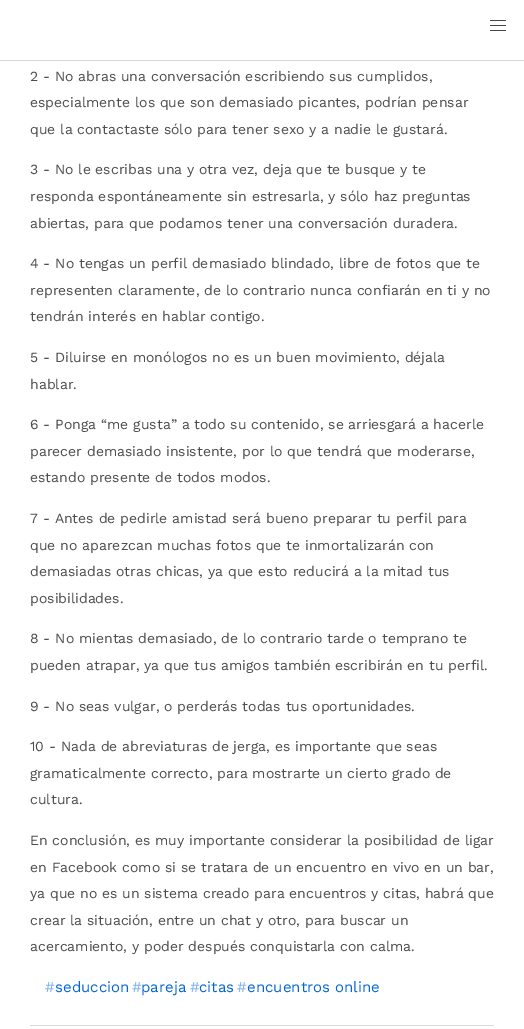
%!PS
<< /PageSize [524 1029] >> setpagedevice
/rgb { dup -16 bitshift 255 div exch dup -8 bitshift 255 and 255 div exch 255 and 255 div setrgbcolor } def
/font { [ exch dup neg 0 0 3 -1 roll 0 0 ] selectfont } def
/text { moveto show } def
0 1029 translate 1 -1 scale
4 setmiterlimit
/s1 { /WorkSans-Regular 14 font 16#4D4D4D rgb } def
/s2 { /WorkSans-Regular 15 font 16#81B3EB rgb } def
/s3 { /WorkSans-Regular 15 font 16#0366D7 rgb } def
16#FFFFFF rgb
0 0 524 1029 rectfill
16#D9D9D9 rgb
0 60 524 1 rectfill
16#464646 rgb
490 20 16 1 rectfill
490 25 16 1 rectfill
490 30 16 1 rectfill
s1
(2 - No abras una conversación escribiendo sus cumplidos,) 30 81 text
(especialmente los que son demasiado picantes, podrían pensar) 30 107 text
(que la contactaste sólo para tener sexo y a nadie le gustará.) 30 134 text
(3 - No le escribas una y otra vez, deja que te busque y te) 30 174 text
(responda espontáneamente sin estresarla, y sólo haz preguntas) 30 201 text
(abiertas, para que podamos tener una conversación duradera.) 30 228 text
(4 - No tengas un perfil demasiado blindado, libre de fotos que te) 30 268 text
(representen claramente, de lo contrario nunca confiarán en ti y no) 30 295 text
(tendrán interés en hablar contigo.) 30 321 text
(5 - Diluirse en monólogos no es un buen movimiento, déjala) 30 362 text
(hablar.) 30 389 text
(6 - Ponga “me gusta” a todo su contenido, se arriesgará a hacerle) 30 429 text
(parecer demasiado insistente, por lo que tendrá que moderarse,) 30 456 text
(estando presente de todos modos.) 30 482 text
(7 - Antes de pedirle amistad será bueno preparar tu perfil para) 30 523 text
(que no aparezcan muchas fotos que te inmortalizarán con) 30 550 text
(demasiadas otras chicas, ya que esto reducirá a la mitad tus) 30 576 text
(posibilidades.) 30 603 text
(8 - No mientas demasiado, de lo contrario tarde o temprano te) 30 643 text
(pueden atrapar, ya que tus amigos también escribirán en tu perfil.) 30 670 text
(9 - No seas vulgar, o perderás todas tus oportunidades.) 30 711 text
(10 - Nada de abreviaturas de jerga, es importante que seas) 30 751 text
(gramaticalmente correcto, para mostrarte un cierto grado de) 30 778 text
(cultura.) 30 804 text
(En conclusión, es muy importante considerar la posibilidad de ligar) 30 845 text
(en Facebook como si se tratara de un encuentro en vivo en un bar,) 30 872 text
(ya que no es un sistema creado para encuentros y citas, habrá que) 30 898 text
(crear la situación, entre un chat y otro, para buscar un) 30 925 text
(acercamiento, y poder después conquistarla con calma.) 30 951 text
16#D9D9D9 rgb
30 1025 464 1 rectfill
s2
(#) 45 992 text
s3
(seduccion) 55 992 text
s2
(#) 132 992 text
s3
(pareja) 141 992 text
s2
(#) 190 992 text
s3
(citas) 199 992 text
s2
(#) 237 992 text
s3
(encuentros online) 247 992 text
showpage
